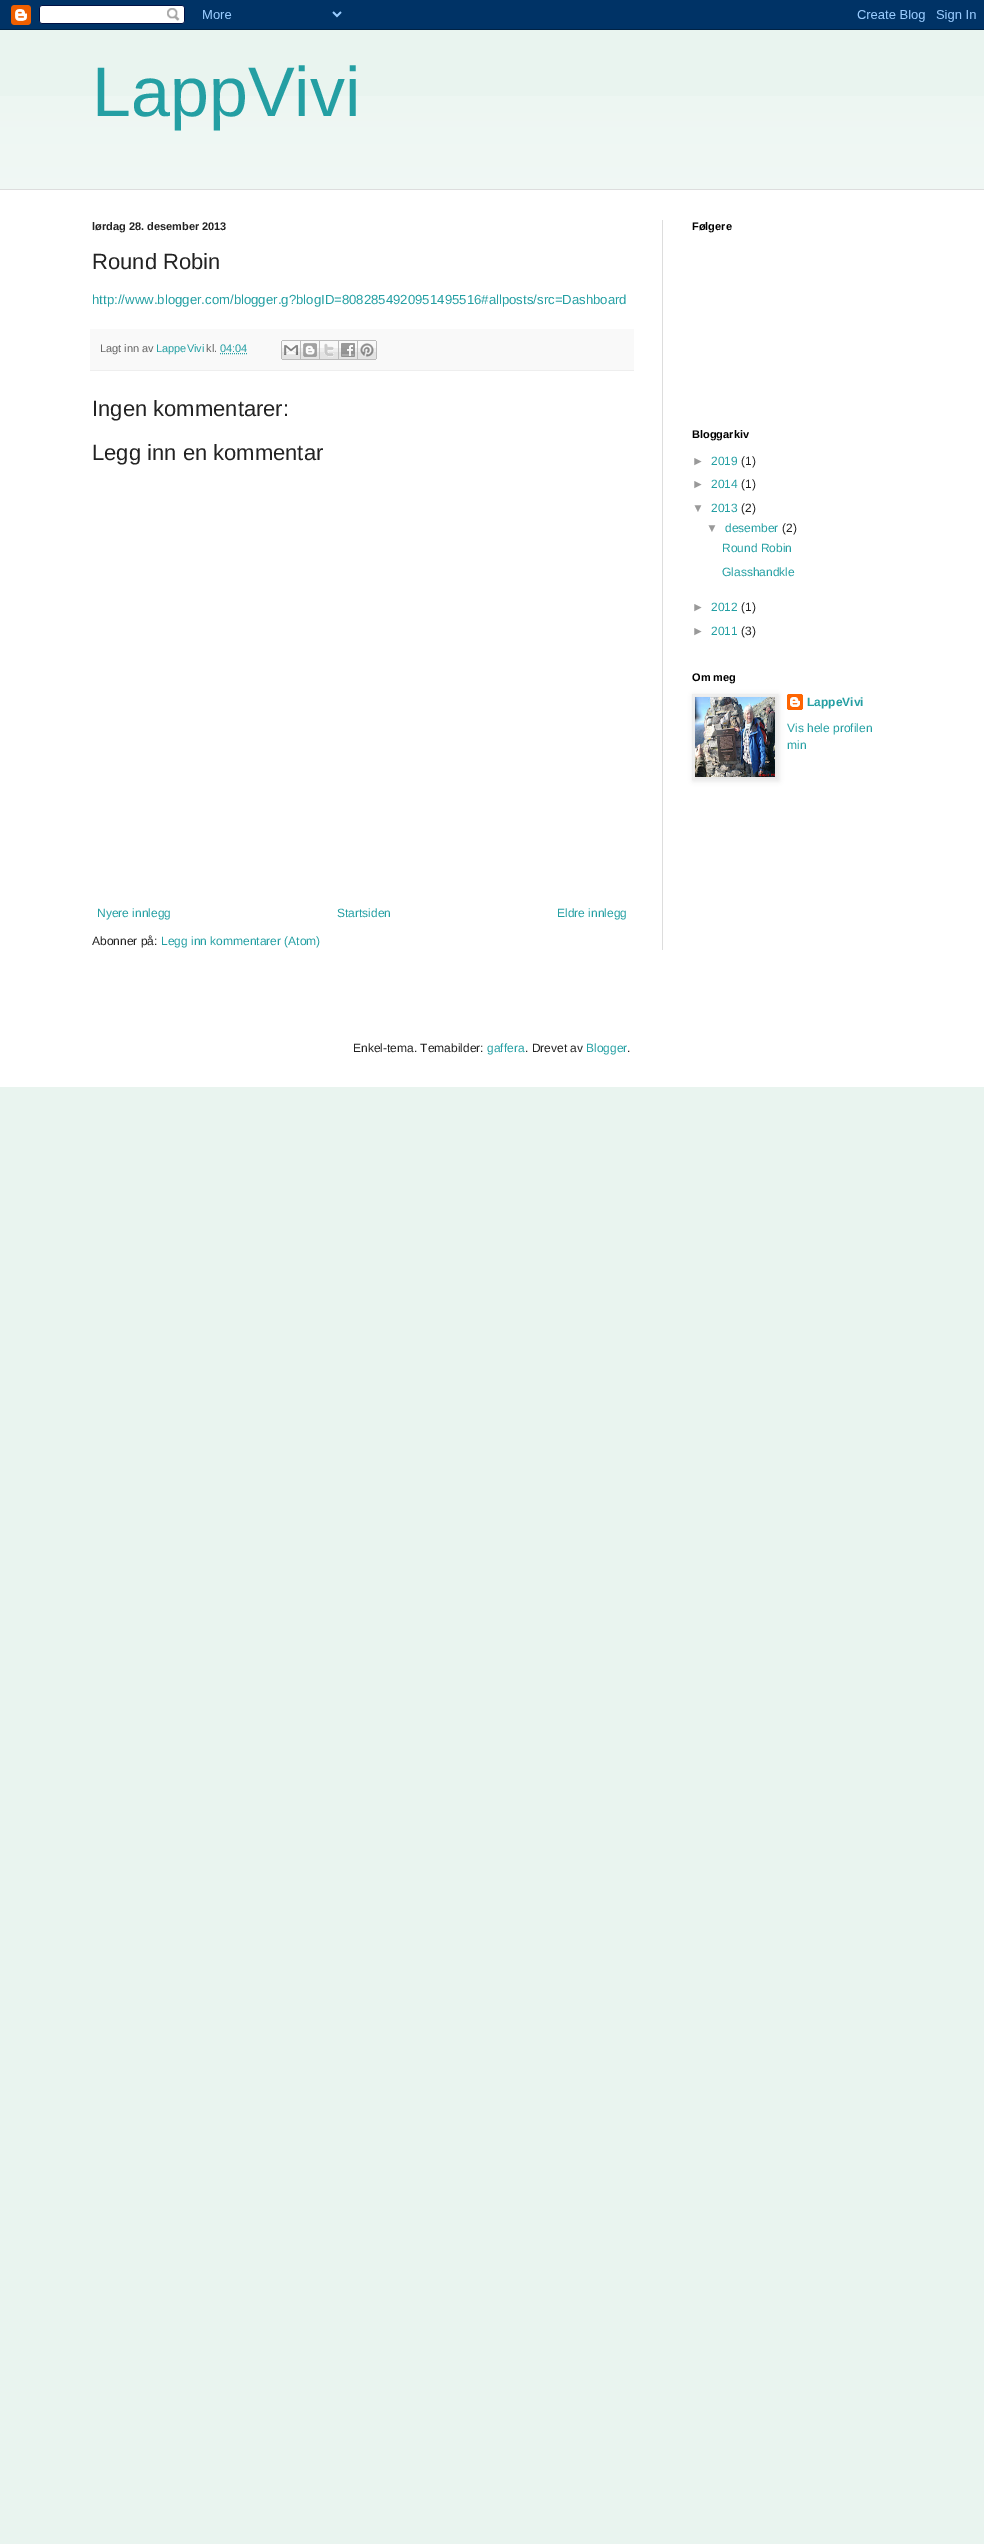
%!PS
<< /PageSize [984 2544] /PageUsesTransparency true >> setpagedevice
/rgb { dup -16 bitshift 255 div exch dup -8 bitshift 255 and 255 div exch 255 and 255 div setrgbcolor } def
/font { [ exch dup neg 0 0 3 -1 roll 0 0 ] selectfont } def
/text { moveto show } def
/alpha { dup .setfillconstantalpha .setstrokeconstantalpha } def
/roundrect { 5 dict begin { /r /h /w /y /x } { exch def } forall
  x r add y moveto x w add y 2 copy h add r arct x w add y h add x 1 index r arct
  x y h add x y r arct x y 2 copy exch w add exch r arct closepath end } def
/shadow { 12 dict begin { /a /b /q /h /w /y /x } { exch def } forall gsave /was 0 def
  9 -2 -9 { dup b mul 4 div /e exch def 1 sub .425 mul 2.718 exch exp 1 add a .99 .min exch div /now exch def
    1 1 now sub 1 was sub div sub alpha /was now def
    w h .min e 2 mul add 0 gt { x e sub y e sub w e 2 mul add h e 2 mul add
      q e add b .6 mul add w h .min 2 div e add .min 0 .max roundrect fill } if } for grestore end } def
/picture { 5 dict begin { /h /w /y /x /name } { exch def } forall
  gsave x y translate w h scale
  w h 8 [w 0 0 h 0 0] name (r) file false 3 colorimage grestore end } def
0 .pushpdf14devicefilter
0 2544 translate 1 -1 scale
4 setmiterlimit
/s1 { /LiberationSans-Regular 70 font 16#249FA3 rgb } def
/s2 { /LiberationSans-Bold 11 font 16#222222 rgb } def
/s3 { /LiberationSans-Regular 22 font 16#222222 rgb } def
/s4 { /LiberationSans-Regular 13.2 font 16#249FA3 rgb } def
/s5 { /LiberationSans-Regular 11 font 16#666666 rgb } def
/s6 { /LiberationSans-Regular 11 font 16#249FA3 rgb } def
/s7 { /LiberationSans-Regular 12 font 16#249FA3 rgb } def
/s8 { /LiberationSans-Regular 12 font 16#222222 rgb } def
/s9 { /LiberationSans-Bold 11 font 16#000000 rgb } def
/s10 { /LiberationSans-Regular 12 font 16#999999 rgb } def
/s11 { /LiberationSans-Bold 12 font 16#249FA3 rgb } def
16#E9F4EF rgb
0 0 984 2544 rectfill
(pic1.raw) 0 0 984 30 picture
(pic9.raw) 0 96 984 93 picture
s1
(LappVivi) 92 116 text
16#FFFFFF rgb
0 190 984 897 rectfill
16#DDDDDD rgb
0 189 984 1 rectfill
662 220 1 730 rectfill
s2
(lørdag 28. desember 2013) 92 230 text
s3
(Round Robin) 92 269 text
s4
(http://www.blogger.com/blogger.g?blogID=8082854920951495516#allposts/src=Dashboard) 92 304 text
16#F9F9F9 rgb
90 329 544 41 rectfill
16#EEEEEE rgb
90 370 544 1 rectfill
s5
(Lagt inn av) 100 352 text
s6
(LappeVivi) 156 352 text
s5
(kl.) 206 352 text
s6
(04:04) 220 352 text
[1 1] 0 setdash
220 353.5 moveto 247 353.5 lineto stroke
(pic2.raw) 281 340 20 20 picture
(pic3.raw) 301 340 19 20 picture
(pic4.raw) 320 340 19 20 picture
(pic5.raw) 339 340 19 20 picture
(pic6.raw) 358 340 19 20 picture
s3
(Ingen kommentarer:) 92 416 text
(Legg inn en kommentar) 92 460 text
s7
(Nyere innlegg) 97 917 text
(Startsiden) 337 917 text
(Eldre innlegg) 557 917 text
s8
(Abonner på:) 92 945 text
s7
(Legg inn kommentarer \(Atom\)) 161 945 text
s9
(Følgere) 692 230 text
(Bloggarkiv) 692 438 text
s10
(►) 692 465 text
s7
(2019) 711 465 text
s8
(\(1\)) 741 465 text
s10
(►) 692 488 text
s7
(2014) 711 488 text
s8
(\(1\)) 741 488 text
s10
(▼) 692 512 text
s7
(2013) 711 512 text
s8
(\(2\)) 741 512 text
s10
(▼) 706 532 text
s7
(desember) 725 532 text
s8
(\(2\)) 782 532 text
s7
(Round Robin) 722 552 text
(Glasshandkle) 722 576 text
s10
(►) 692 611 text
s7
(2012) 711 611 text
s8
(\(1\)) 741 611 text
s10
(►) 692 635 text
s7
(2011) 711 635 text
s8
(\(3\)) 741 635 text
s9
(Om meg) 692 681 text
(pic8.raw) 787 694 16 16 picture
693 695 86 86 0 2.5 0.1 shadow
16#EEEEEE rgb
[] 0 setdash
692.5 694.5 85 85 rectstroke
(pic7.raw) 695 697 80 80 picture
s11
(LappeVivi) 807 706 text
s7
(Vis hele profilen) 787 732 text
(min) 787 749 text
s8
(Enkel-tema. Temabilder:) 353 1052 text
s7
(gaffera) 487 1052 text
s8
(. Drevet av) 525 1052 text
s7
(Blogger) 586 1052 text
s8
(.) 627 1052 text
.poppdf14devicefilter showpage
